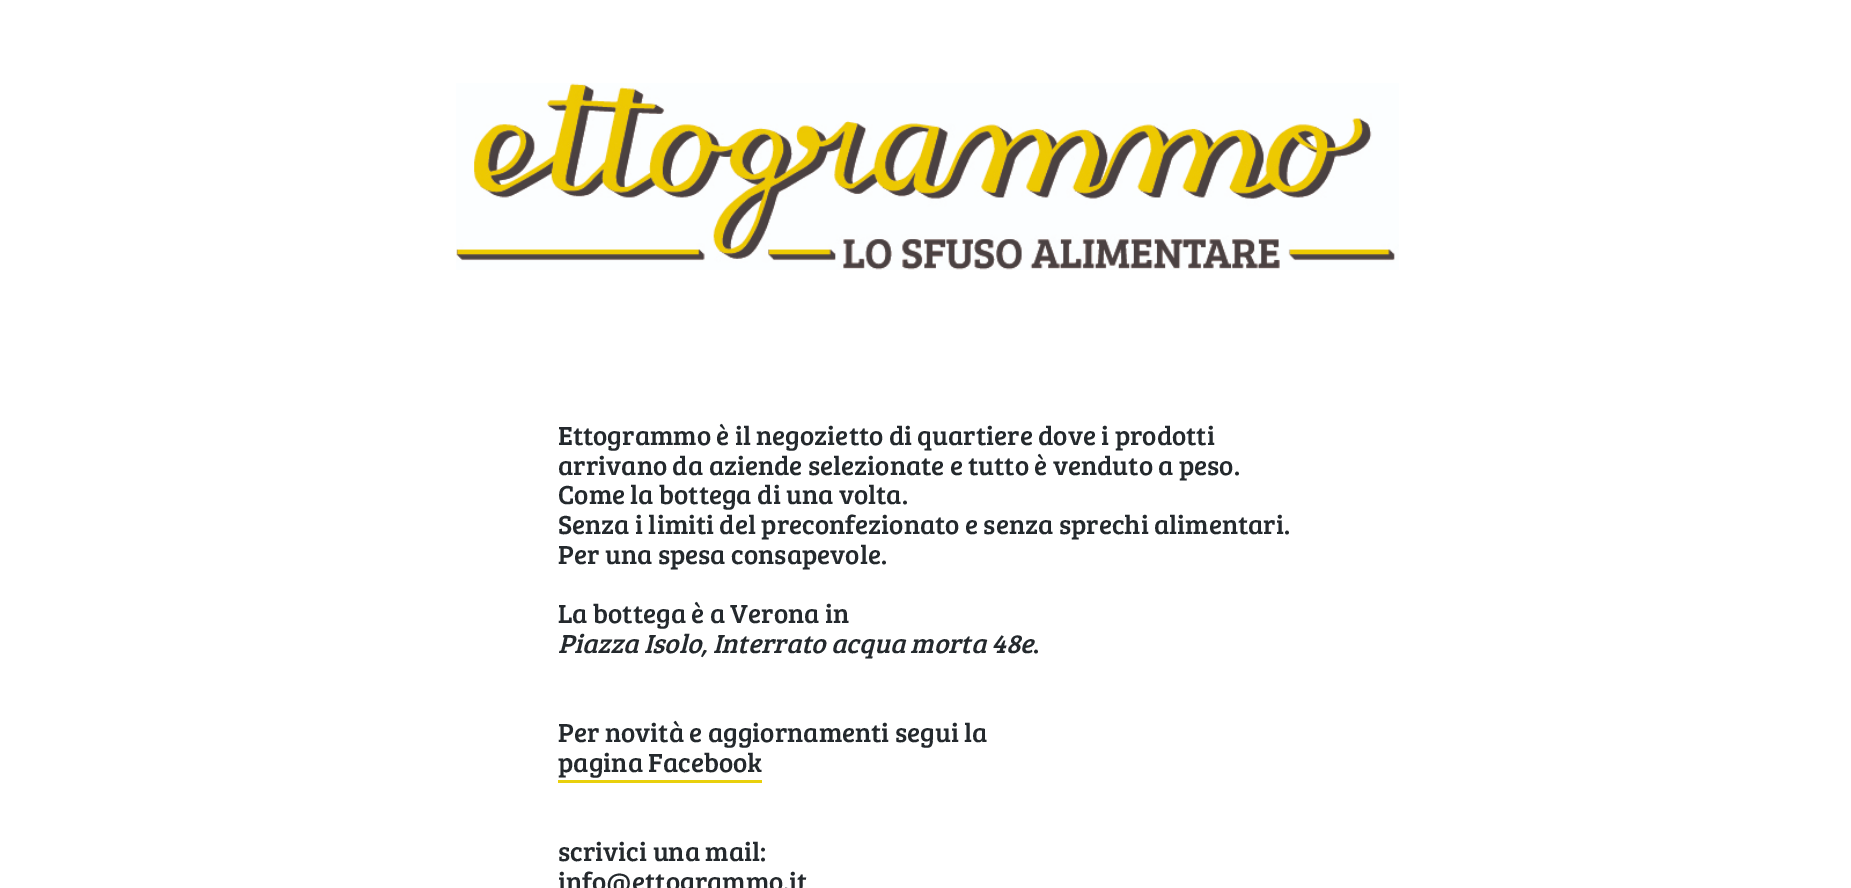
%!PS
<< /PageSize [1851 888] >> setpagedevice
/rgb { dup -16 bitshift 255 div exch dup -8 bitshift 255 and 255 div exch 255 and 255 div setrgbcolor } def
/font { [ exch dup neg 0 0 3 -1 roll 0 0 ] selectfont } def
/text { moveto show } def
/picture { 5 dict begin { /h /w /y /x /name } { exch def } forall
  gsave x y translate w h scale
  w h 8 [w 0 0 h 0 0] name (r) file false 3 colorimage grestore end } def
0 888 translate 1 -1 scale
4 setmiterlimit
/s1 { /BreeSerif-Regular 27 font 16#24292D rgb } def
/s2 { /BreeSerif-Italic 27 font 16#24292D rgb } def
16#FFFFFF rgb
0 0 1851 888 rectfill
(pic1.raw) 456 83 943 187 picture
s1
(Ettogrammo è il negozietto di quartiere dove i prodotti) 558 445 text
(arrivano da aziende selezionate e tutto è venduto a peso.) 558 475 text
(Come la bottega di una volta.) 558 504 text
(Senza i limiti del preconfezionato e senza sprechi alimentari.) 558 534 text
(Per una spesa consapevole.) 558 564 text
(La bottega è a Verona in) 558 623 text
s2
(Piazza Isolo, Interrato acqua morta 48e) 558 653 text
s1
(.) 1033 653 text
(Per novità e aggiornamenti segui la) 558 742 text
(pagina Facebook) 558 772 text
16#E9D00C rgb
558 780 204 3 rectfill
s1
(scrivici una mail:) 558 861 text
(info@ettogrammo.it) 558 891 text
showpage
